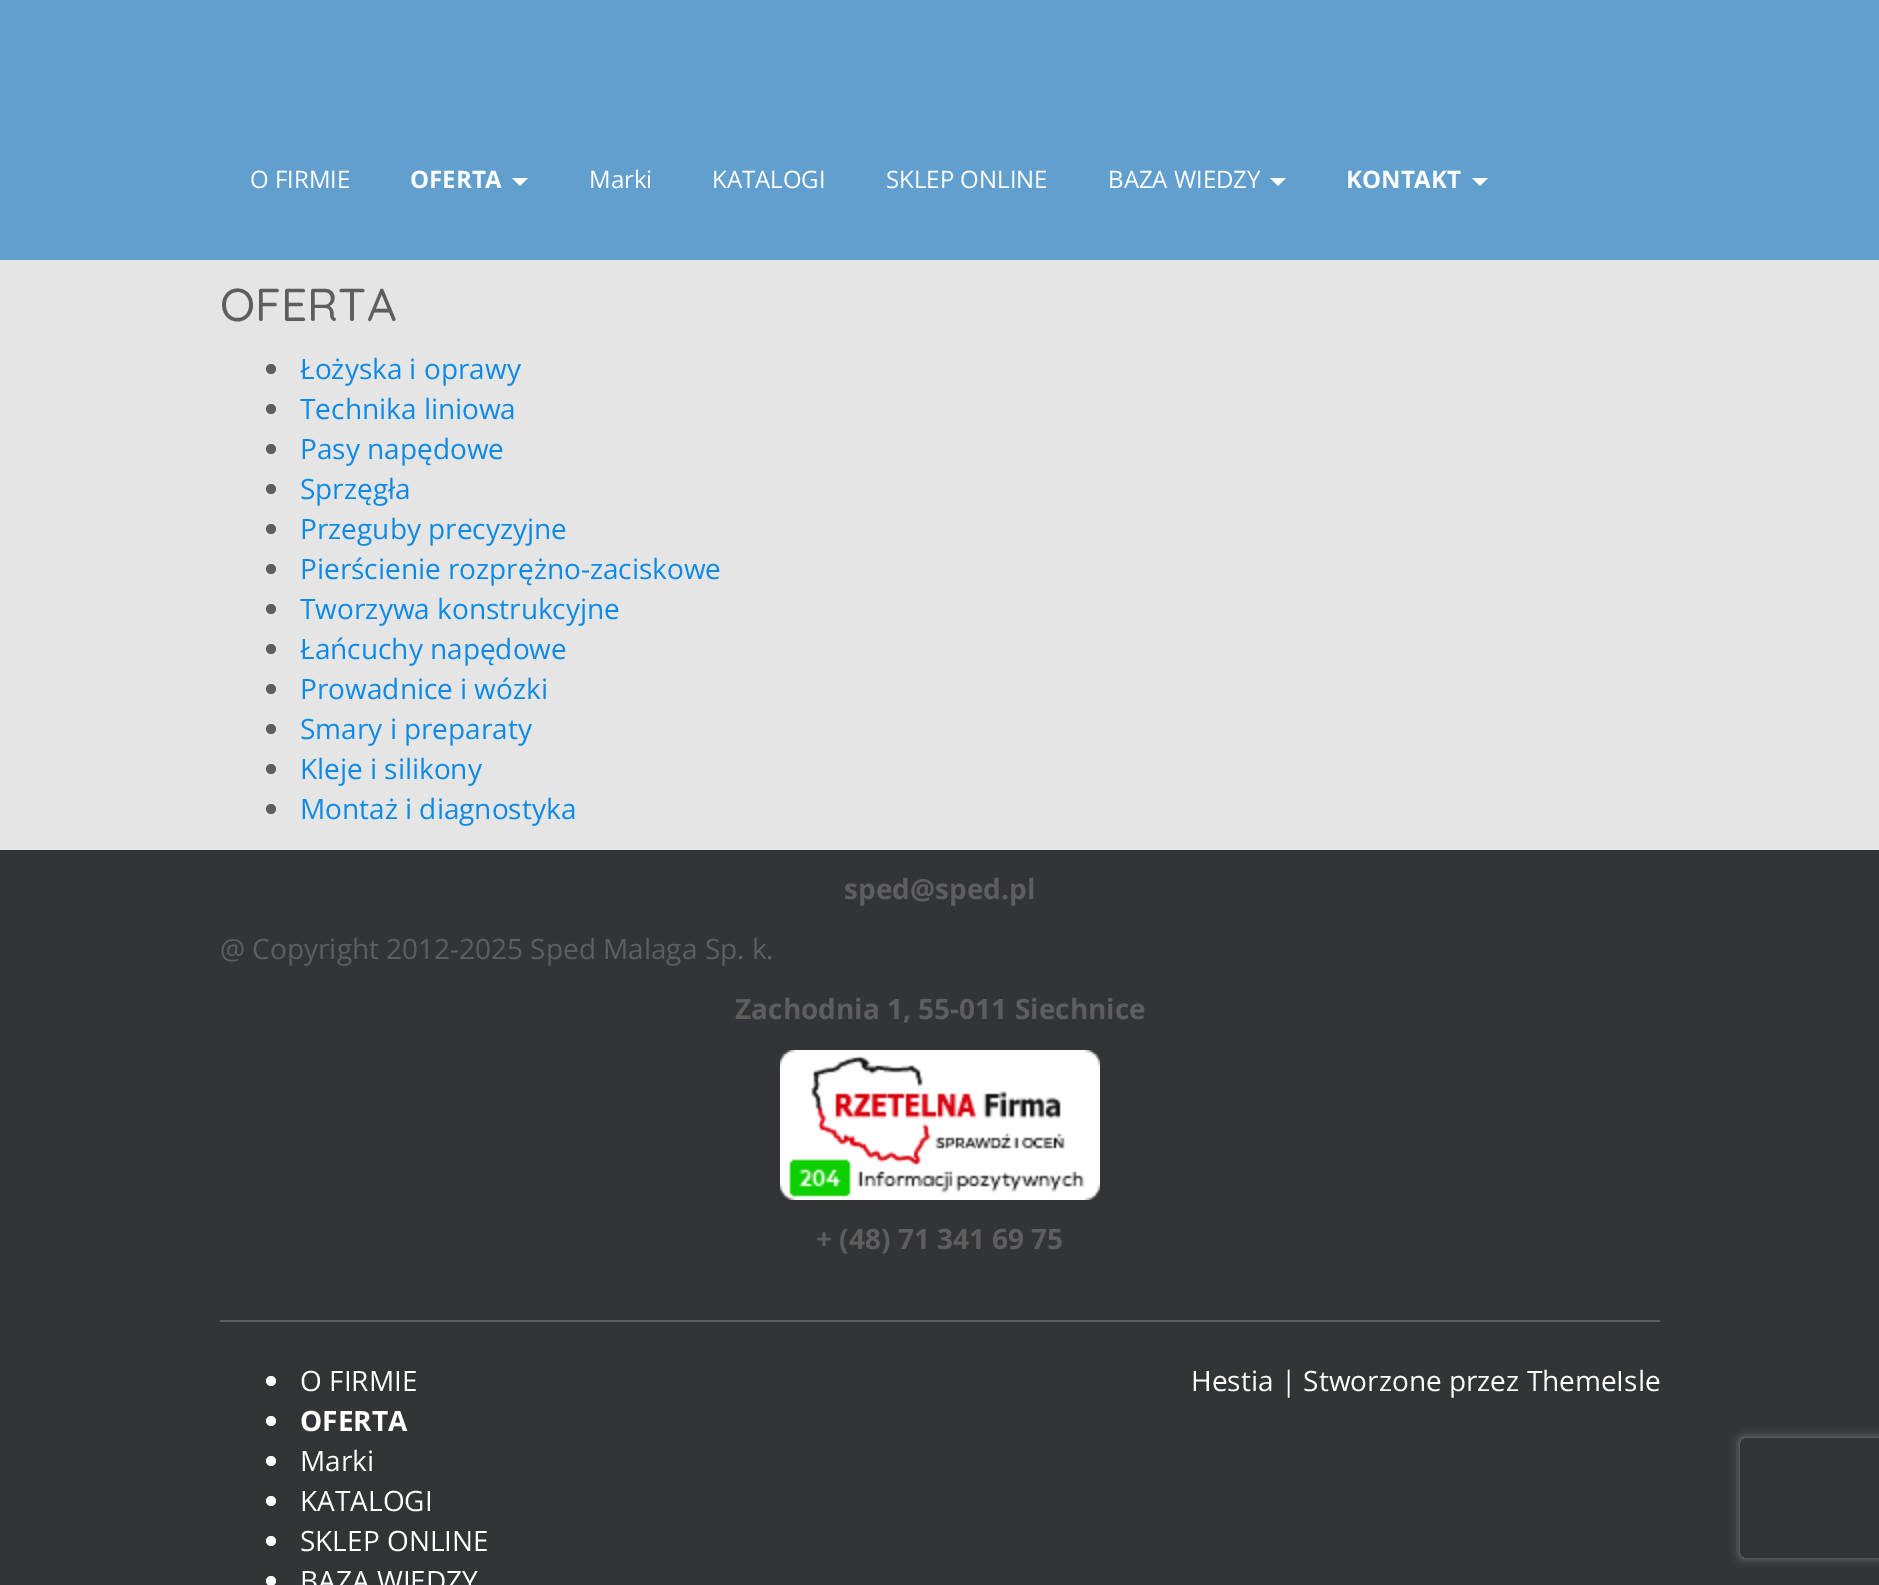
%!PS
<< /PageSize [1879 1585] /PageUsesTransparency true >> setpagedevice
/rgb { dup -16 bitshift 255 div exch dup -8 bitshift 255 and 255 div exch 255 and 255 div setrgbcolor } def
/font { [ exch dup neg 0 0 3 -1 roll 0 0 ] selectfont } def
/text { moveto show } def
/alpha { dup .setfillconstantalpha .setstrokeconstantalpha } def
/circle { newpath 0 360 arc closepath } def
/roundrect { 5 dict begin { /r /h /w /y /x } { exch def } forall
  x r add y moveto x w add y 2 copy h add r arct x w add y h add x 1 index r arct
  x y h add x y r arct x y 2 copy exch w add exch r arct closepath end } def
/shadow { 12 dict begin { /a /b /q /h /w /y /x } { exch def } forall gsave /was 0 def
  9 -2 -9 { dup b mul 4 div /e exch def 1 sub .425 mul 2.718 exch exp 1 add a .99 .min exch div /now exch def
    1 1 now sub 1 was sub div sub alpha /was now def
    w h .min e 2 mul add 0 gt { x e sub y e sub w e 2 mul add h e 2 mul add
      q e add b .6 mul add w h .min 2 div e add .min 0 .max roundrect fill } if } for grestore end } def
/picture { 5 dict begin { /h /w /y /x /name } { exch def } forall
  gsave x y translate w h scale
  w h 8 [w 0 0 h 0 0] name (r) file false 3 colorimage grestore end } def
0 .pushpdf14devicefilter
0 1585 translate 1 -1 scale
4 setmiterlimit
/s1 { /OpenSans-Regular 24 font 16#FFFFFF rgb } def
/s2 { /OpenSans-Bold 24 font 16#FFFFFF rgb } def
/s3 { /Quicksand-Medium 46 font 16#5E5E5E rgb } def
/s4 { /OpenSans-Regular 28 font 16#0A8AE6 rgb } def
/s5 { /OpenSans-Bold 28 font 16#5E5E5E rgb } def
/s6 { /OpenSans-Regular 28 font 16#5E5E5E rgb } def
/s7 { /OpenSans-Regular 28 font 16#FFFFFF rgb } def
/s8 { /OpenSans-Bold 28 font 16#FFFFFF rgb } def
16#E5E5E5 rgb
0 0 1879 1585 rectfill
16#61A0CE rgb
0 0 1879 260 rectfill
s1
(O FIRMIE) 250 188 text
s2
(OFERTA) 410 188 text
512 178 moveto 528 178 lineto 520 186 lineto closepath fill
s1
(Marki) 589 188 text
(KATALOGI) 712 188 text
(SKLEP ONLINE) 886 188 text
(BAZA WIEDZY) 1108 188 text
1270 178 moveto 1286 178 lineto 1278 186 lineto closepath fill
s2
(KONTAKT) 1346 188 text
1472 178 moveto 1488 178 lineto 1480 186 lineto closepath fill
s3
(OFERTA) 220 321 text
271 369 5 circle fill
s4
(Łożyska i oprawy) 300 379 text
16#5E5E5E rgb
271 409 5 circle fill
s4
(Technika liniowa) 300 419 text
16#5E5E5E rgb
271 449 5 circle fill
s4
(Pasy napędowe) 300 459 text
16#5E5E5E rgb
271 489 5 circle fill
s4
(Sprzęgła) 300 499 text
16#5E5E5E rgb
271 529 5 circle fill
s4
(Przeguby precyzyjne) 300 539 text
16#5E5E5E rgb
271 569 5 circle fill
s4
(Pierścienie rozprężno-zaciskowe) 300 579 text
16#5E5E5E rgb
271 609 5 circle fill
s4
(Tworzywa konstrukcyjne) 300 619 text
16#5E5E5E rgb
271 649 5 circle fill
s4
(Łańcuchy napędowe) 300 659 text
16#5E5E5E rgb
271 689 5 circle fill
s4
(Prowadnice i wózki) 300 699 text
16#5E5E5E rgb
271 729 5 circle fill
s4
(Smary i preparaty) 300 739 text
16#5E5E5E rgb
271 769 5 circle fill
s4
(Kleje i silikony) 300 779 text
16#5E5E5E rgb
271 809 5 circle fill
s4
(Montaż i diagnostyka) 300 819 text
16#323437 rgb
0 850 1879 735 rectfill
s5
(sped@sped.pl) 844 899 text
s6
(@ Copyright 2012-2025 Sped Malaga Sp. k.) 220 959 text
s5
(Zachodnia 1, 55-011 Siechnice) 735 1019 text
(pic1.raw) 780 1050 320 150 picture
(+ \(48\) 71 341 69 75) 816 1249 text
220 1320 1440 2 rectfill
16#FFFFFF rgb
271 1381 5 circle fill
s7
(O FIRMIE) 300 1391 text
271 1421 5 circle fill
s8
(OFERTA) 300 1431 text
271 1461 5 circle fill
s7
(Marki) 300 1471 text
271 1501 5 circle fill
(KATALOGI) 300 1511 text
271 1541 5 circle fill
(SKLEP ONLINE) 300 1551 text
271 1581 5 circle fill
(BAZA WIEDZY) 300 1591 text
(Hestia | Stworzone przez ThemeIsle) 1191 1391 text
gsave
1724 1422 moveto 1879 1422 lineto 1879 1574 lineto 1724 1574 lineto closepath 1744 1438 moveto 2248 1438 lineto 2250 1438 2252 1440 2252 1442 curveto 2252 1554 lineto 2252 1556 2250 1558 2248 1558 curveto 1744 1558 lineto 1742 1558 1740 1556 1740 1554 curveto 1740 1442 lineto 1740 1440 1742 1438 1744 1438 curveto closepath eoclip newpath
16#808080 rgb
1740 1438 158 120 4 5 1 shadow
grestore
.poppdf14devicefilter showpage
